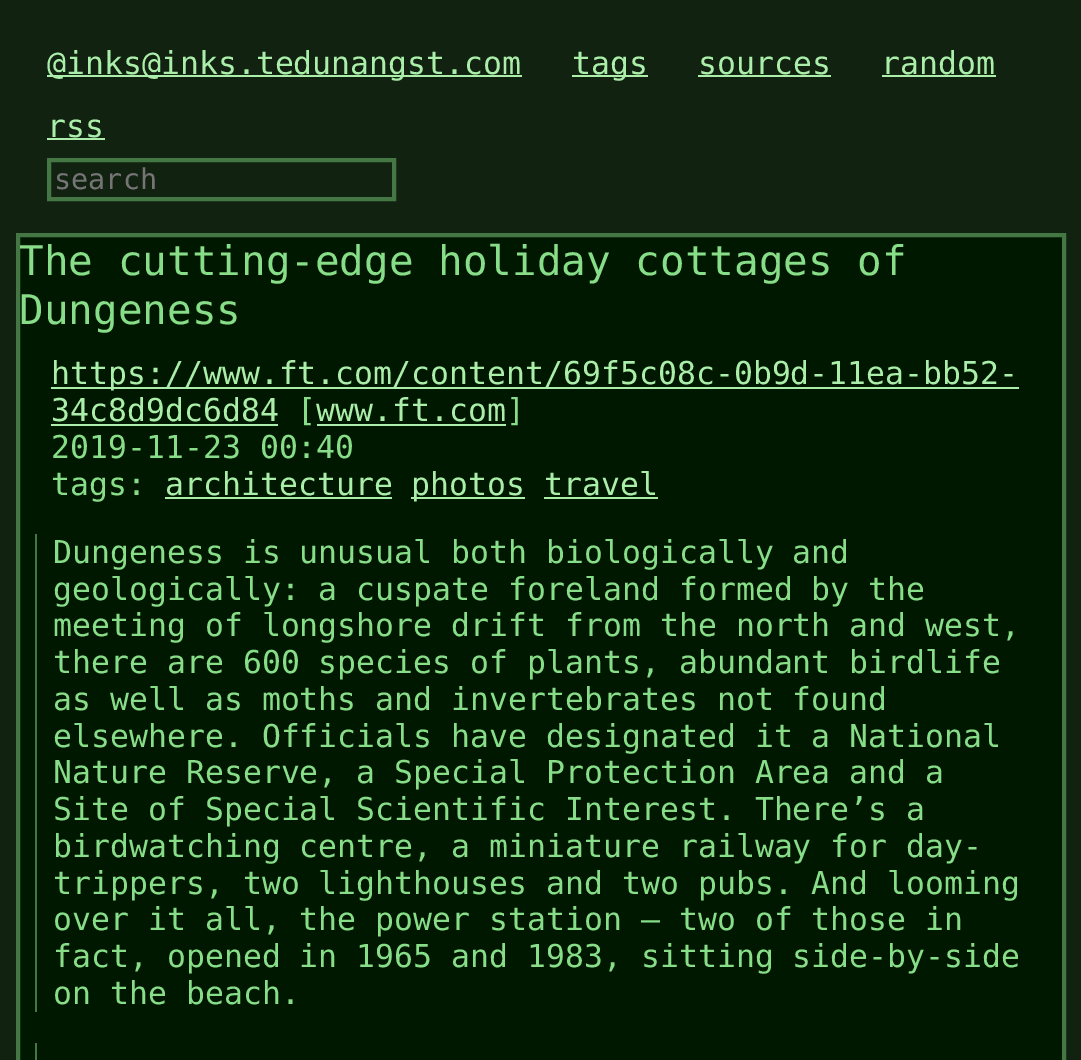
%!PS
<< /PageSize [1081 1060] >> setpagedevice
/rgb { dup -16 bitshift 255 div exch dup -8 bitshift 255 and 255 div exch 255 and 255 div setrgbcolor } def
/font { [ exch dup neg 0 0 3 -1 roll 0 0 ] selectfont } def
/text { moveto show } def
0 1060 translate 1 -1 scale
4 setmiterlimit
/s1 { /DejaVuSansMono-Regular 31.5 font 16#AAEEAA rgb } def
/s2 { /DejaVuSansMono-Regular 28.5 font 16#757575 rgb } def
/s3 { /DejaVuSansMono-Regular 40.95 font 16#88DD88 rgb } def
/s4 { /DejaVuSansMono-Regular 31.5 font 16#88DD88 rgb } def
16#112211 rgb
0 0 1081 1060 rectfill
16#AAEEAA rgb
47 75 475 2 rectfill
s1
(@inks@inks.tedunangst.com) 47 74 text
572 75 76 2 rectfill
(tags) 572 74 text
(sources) 698 74 text
698 75 133 2 rectfill
(random) 881 74 text
882 75 114 2 rectfill
(rss) 47 137 text
47 138 58 2 rectfill
16#447744 rgb
4 setlinewidth
49 160 345 39 rectstroke
s2
(search) 54 189 text
16#001700 rgb
18 235 moveto 1064 235 lineto 1064 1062 lineto 18 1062 lineto closepath gsave fill grestore
16#447744 rgb
stroke
s3
(The cutting-edge holiday cottages of) 19 275 text
(Dungeness) 19 324 text
16#AAEEAA rgb
51 387 968 2 rectfill
s1
(https://www.ft.com/content/69f5c08c-0b9d-11ea-bb52-) 51 384 text
(34c8d9dc6d84) 51 421 text
51 424 227 2 rectfill
s4
([) 297 421 text
s1
(www.ft.com) 316 421 text
317 424 189 2 rectfill
s4
(]) 506 421 text
(2019-11-23 00:40) 51 458 text
(tags:) 51 495 text
s1
(architecture) 165 495 text
165 497 227 2 rectfill
411 497 114 2 rectfill
(photos travel) 411 495 text
544 497 114 2 rectfill
16#447744 rgb
35 534 2 478 rectfill
s4
(Dungeness is unusual both biologically and) 53 563 text
(geologically: a cuspate foreland formed by the) 53 600 text
(meeting of longshore drift from the north and west,) 53 636 text
(there are 600 species of plants, abundant birdlife) 53 673 text
(as well as moths and invertebrates not found) 53 710 text
(elsewhere. Officials have designated it a National) 53 747 text
(Nature Reserve, a Special Protection Area and a) 53 783 text
(Site of Special Scientific Interest. There’s a) 53 820 text
(birdwatching centre, a miniature railway for day-) 53 857 text
(trippers, two lighthouses and two pubs. And looming) 53 894 text
(over it all, the power station — two of those in) 53 930 text
(fact, opened in 1965 and 1983, sitting side-by-side) 53 967 text
(on the beach.) 53 1004 text
16#447744 rgb
35 1043 2 17 rectfill
showpage
